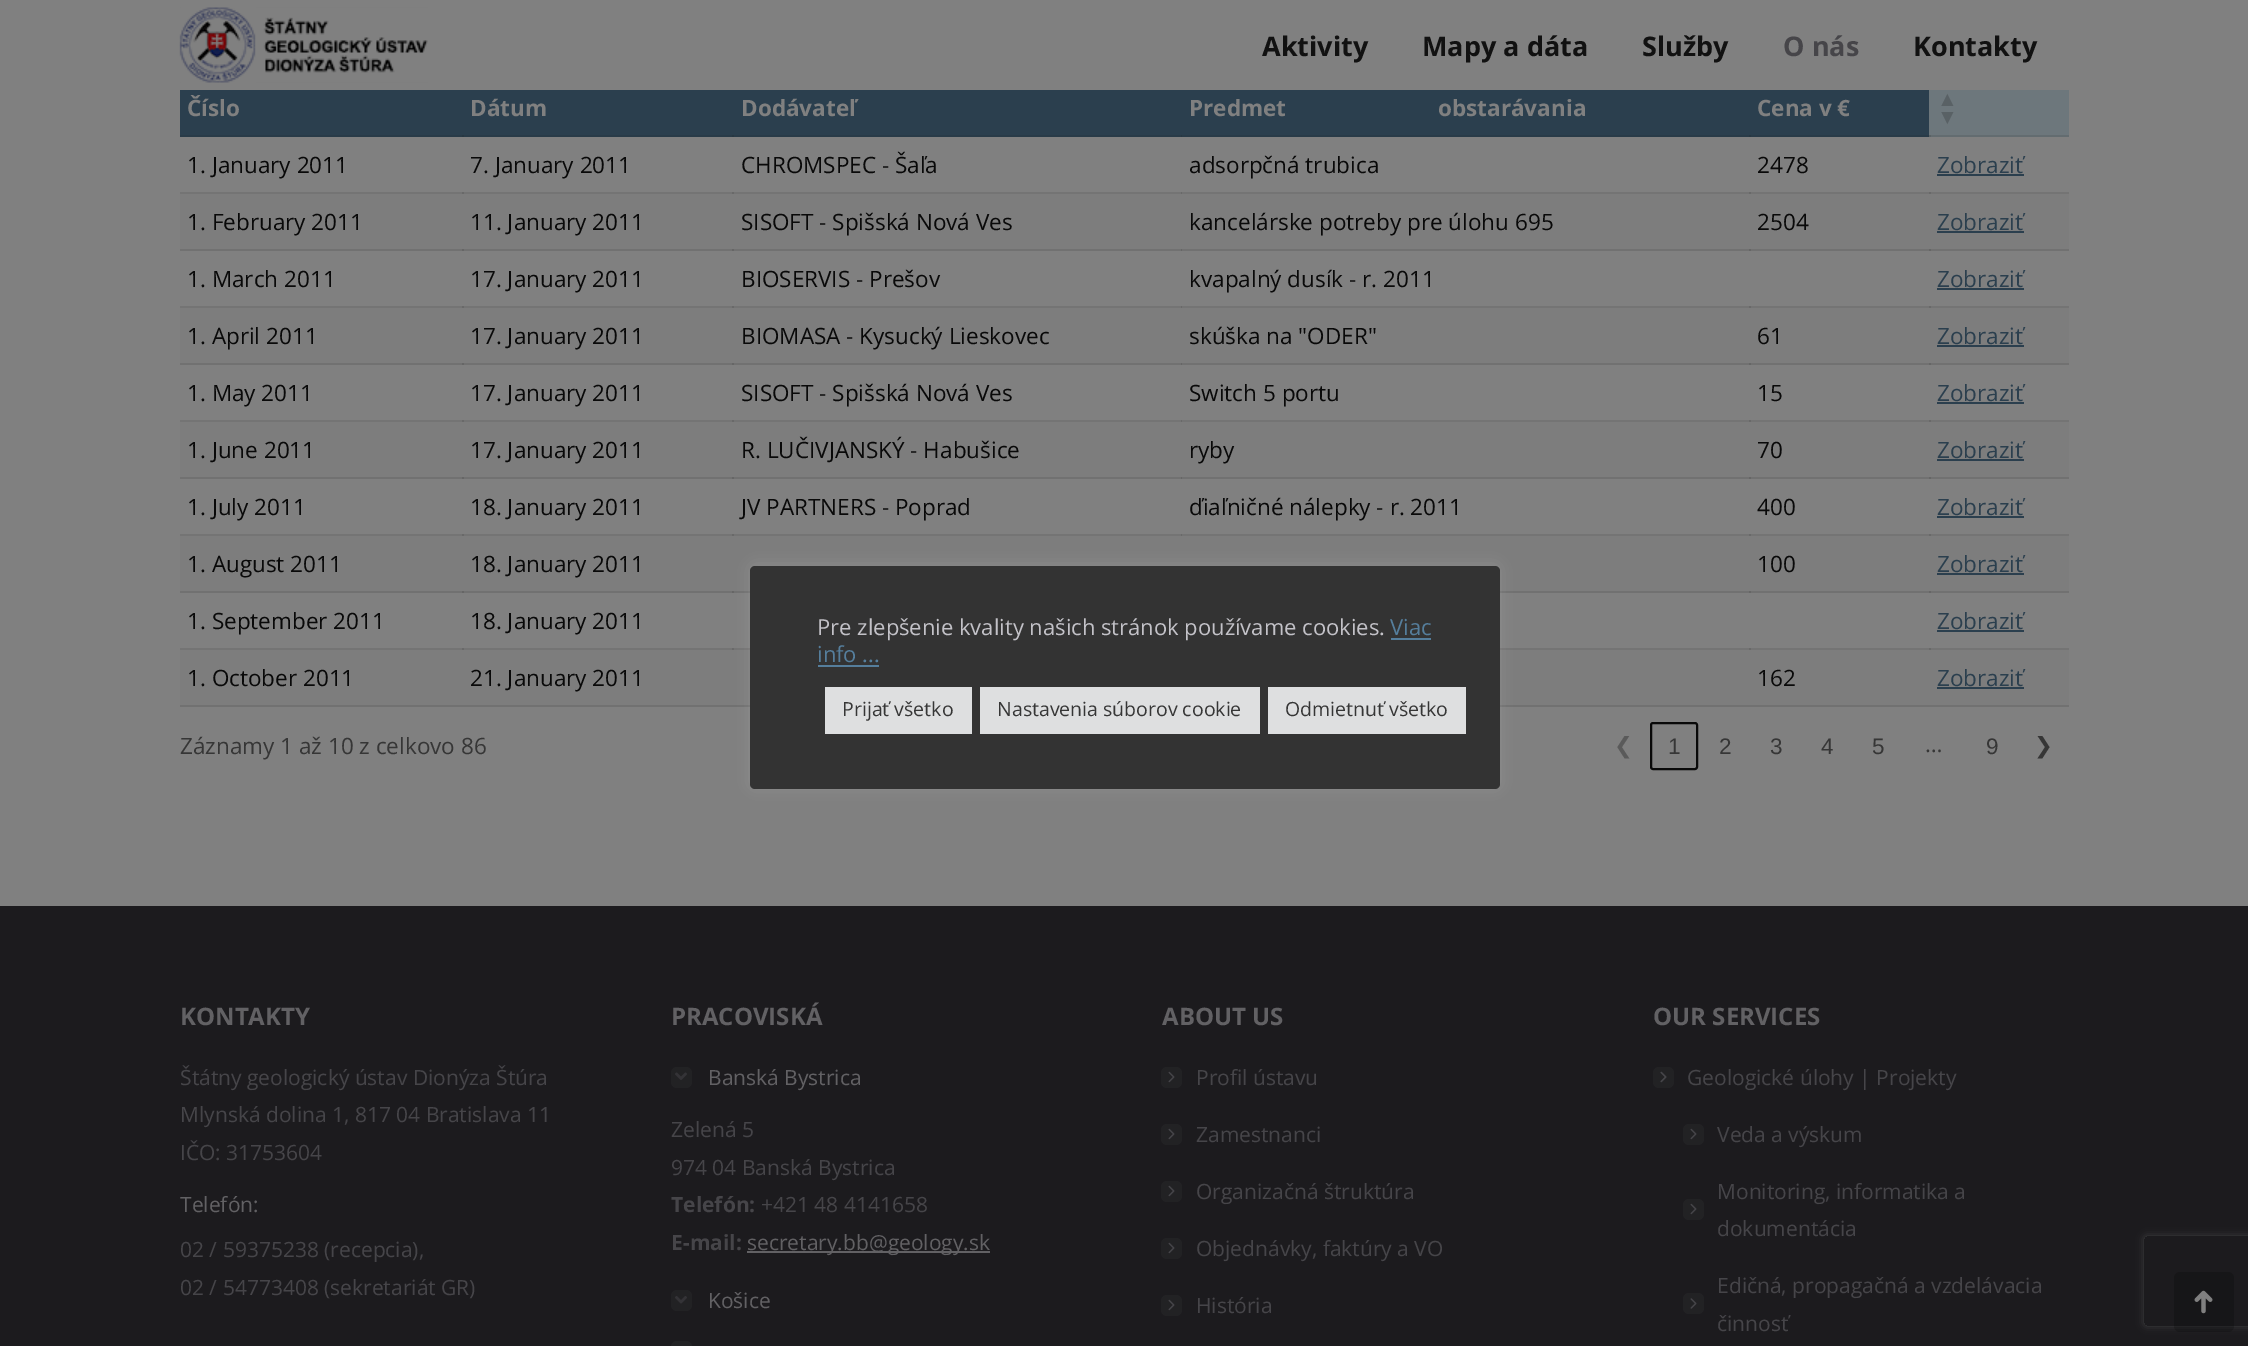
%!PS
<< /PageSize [2248 1346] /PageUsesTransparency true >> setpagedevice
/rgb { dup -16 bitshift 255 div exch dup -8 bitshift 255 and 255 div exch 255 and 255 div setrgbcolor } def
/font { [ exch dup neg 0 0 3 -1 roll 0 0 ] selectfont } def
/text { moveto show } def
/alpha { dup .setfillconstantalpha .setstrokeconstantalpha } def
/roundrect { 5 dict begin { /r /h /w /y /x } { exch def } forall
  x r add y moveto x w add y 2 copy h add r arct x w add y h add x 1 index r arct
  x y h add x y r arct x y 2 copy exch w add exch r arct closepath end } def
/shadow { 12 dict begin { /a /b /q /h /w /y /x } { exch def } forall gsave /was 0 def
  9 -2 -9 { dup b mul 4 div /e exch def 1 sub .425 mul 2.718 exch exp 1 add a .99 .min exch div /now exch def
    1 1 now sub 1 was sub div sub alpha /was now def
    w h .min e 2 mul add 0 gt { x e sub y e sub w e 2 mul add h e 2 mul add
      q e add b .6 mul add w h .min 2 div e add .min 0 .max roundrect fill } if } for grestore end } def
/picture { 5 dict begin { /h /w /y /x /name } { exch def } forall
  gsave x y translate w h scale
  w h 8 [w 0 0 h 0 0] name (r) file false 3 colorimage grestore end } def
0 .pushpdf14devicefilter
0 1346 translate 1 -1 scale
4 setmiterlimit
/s1 { /OpenSans-Bold 27 font 16#111111 rgb } def
/s2 { /OpenSans-Bold 27 font 16#464549 rgb } def
/s3 { /OpenSans-Bold 22.5 font 16#808080 rgb } def
/s4 { /LiberationSans-Bold 21 font 16#596165 rgb } def
/s5 { /OpenSans-Regular 22.5 font 16#090909 rgb } def
/s6 { /OpenSans-Regular 22.5 font 16#2B3F4E rgb } def
/s7 { /OpenSans-Regular 22.5 font 16#363636 rgb } def
/s8 { /DejaVuSans-Regular 22.5 font 16#5A5A5A rgb } def
/s9 { /LiberationSans-Regular 22.5 font 16#363636 rgb } def
/s10 { /DejaVuSans-Regular 22.5 font 16#363636 rgb } def
/s11 { /OpenSans-Bold 24 font 16#626164 rgb } def
/s12 { /OpenSans-Regular 21 font 16#464549 rgb } def
/s13 { /OpenSans-Regular 21 font 16#626164 rgb } def
/s14 { /OpenSans-Bold 21 font 16#464549 rgb } def
/s15 { /OpenSans-Regular 22 font 16#C3C2C8 rgb } def
/s16 { /OpenSans-Regular 22 font 16#557E9C rgb } def
/s17 { /OpenSans-Regular 19.5 font 16#363636 rgb } def
16#808080 rgb
0 0 2248 1346 rectfill
(pic1.raw) 179 7 249 76 picture
s1
(Aktivity) 1262 56 text
(Mapy a dáta) 1422 56 text
(Služby) 1642 56 text
s2
(O nás) 1783 56 text
s1
(Kontakty) 1913 56 text
16#747474 rgb
180 192 1889 2 rectfill
16#696969 rgb
462 192 2 2 rectfill
732 192 2 2 rectfill
1181 192 1 2 rectfill
1749 192 2 2 rectfill
16#747474 rgb
180 306 1889 2 rectfill
16#696969 rgb
462 306 2 2 rectfill
732 306 2 2 rectfill
1181 306 1 2 rectfill
1749 306 2 2 rectfill
16#747474 rgb
180 420 1889 2 rectfill
16#696969 rgb
462 420 2 2 rectfill
732 420 2 2 rectfill
1181 420 1 2 rectfill
1749 420 2 2 rectfill
16#747474 rgb
180 534 1889 2 rectfill
16#696969 rgb
462 534 2 2 rectfill
732 534 2 2 rectfill
1181 534 1 2 rectfill
1749 534 2 2 rectfill
16#747474 rgb
180 648 570 2 rectfill
16#696969 rgb
462 648 2 2 rectfill
732 648 2 2 rectfill
16#747474 rgb
1500 648 569 2 rectfill
16#696969 rgb
1749 648 2 2 rectfill
16#717171 rgb
180 705 1889 2 rectfill
16#2B3F4E rgb
180 90 1749 45 rectfill
16#293B48 rgb
180 135 1749 2 rectfill
s3
(Číslo) 187 116 text
16#273742 rgb
462 135 2 2 rectfill
732 135 2 2 rectfill
s3
(Dátum) 470 116 text
(Dodávateľ) 741 116 text
16#273742 rgb
1181 135 1 2 rectfill
1749 135 2 2 rectfill
s3
(Predmet                          obstarávania) 1189 116 text
(Cena v €) 1757 116 text
16#6D777C rgb
1929 90 140 45 rectfill
s4
(▲) 1937 106 text
(▼) 1937 124 text
s5
(1. January 2011) 187 173 text
(7. January 2011) 470 173 text
(CHROMSPEC - Šaľa) 741 173 text
(adsorpčná trubica) 1189 173 text
(2478) 1757 173 text
16#636C70 rgb
1929 135 140 2 rectfill
16#5A6265 rgb
1929 135 2 2 rectfill
s6
(Zobraziť) 1937 173 text
1937 174 87 2 rectfill
16#7D7D7D rgb
180 194 1889 55 rectfill
16#717171 rgb
180 249 1889 2 rectfill
s5
(1. February 2011) 187 230 text
16#666666 rgb
462 249 2 2 rectfill
732 249 2 2 rectfill
s5
(11. January 2011) 470 230 text
(SISOFT - Spišská Nová Ves) 741 230 text
16#666666 rgb
1181 249 1 2 rectfill
1749 249 2 2 rectfill
s5
(kancelárske potreby pre úlohu 695) 1189 230 text
(2504) 1757 230 text
16#696969 rgb
1929 192 2 2 rectfill
s6
(Zobraziť) 1937 230 text
1937 231 87 2 rectfill
s5
(1. March 2011) 187 287 text
(17. January 2011) 470 287 text
(BIOSERVIS - Prešov) 741 287 text
(kvapalný dusík - r. 2011) 1189 287 text
16#666666 rgb
1929 249 2 2 rectfill
s6
(Zobraziť) 1937 287 text
1937 288 87 2 rectfill
16#7D7D7D rgb
180 308 1889 55 rectfill
16#717171 rgb
180 363 1889 2 rectfill
s5
(1. April 2011) 187 344 text
16#666666 rgb
462 363 2 2 rectfill
732 363 2 2 rectfill
s5
(17. January 2011) 470 344 text
(BIOMASA - Kysucký Lieskovec) 741 344 text
16#666666 rgb
1181 363 1 2 rectfill
1749 363 2 2 rectfill
s5
(skúška na "ODER") 1189 344 text
(61) 1757 344 text
16#696969 rgb
1929 306 2 2 rectfill
s6
(Zobraziť) 1937 344 text
1937 345 87 2 rectfill
s5
(1. May 2011) 187 401 text
(17. January 2011) 470 401 text
(SISOFT - Spišská Nová Ves) 741 401 text
(Switch 5 portu) 1189 401 text
(15) 1757 401 text
16#666666 rgb
1929 363 2 2 rectfill
s6
(Zobraziť) 1937 401 text
1937 402 87 2 rectfill
16#7D7D7D rgb
180 422 1889 55 rectfill
16#717171 rgb
180 477 1889 2 rectfill
s5
(1. June 2011) 187 458 text
16#666666 rgb
462 477 2 2 rectfill
732 477 2 2 rectfill
s5
(17. January 2011) 470 458 text
(R. LUČIVJANSKÝ - Habušice) 741 458 text
16#666666 rgb
1181 477 1 2 rectfill
1749 477 2 2 rectfill
s5
(ryby) 1189 458 text
(70) 1757 458 text
16#696969 rgb
1929 420 2 2 rectfill
s6
(Zobraziť) 1937 458 text
1937 459 87 2 rectfill
s5
(1. July 2011) 187 515 text
(18. January 2011) 470 515 text
(JV PARTNERS - Poprad) 741 515 text
(ďiaľničné nálepky - r. 2011) 1189 515 text
(400) 1757 515 text
16#666666 rgb
1929 477 2 2 rectfill
s6
(Zobraziť) 1937 515 text
1937 516 87 2 rectfill
16#7D7D7D rgb
180 536 1889 55 rectfill
16#717171 rgb
180 591 570 2 rectfill
s5
(1. August 2011) 187 572 text
16#666666 rgb
462 591 2 2 rectfill
732 591 2 2 rectfill
s5
(18. January 2011) 470 572 text
(100) 1757 572 text
16#696969 rgb
1929 534 2 2 rectfill
s6
(Zobraziť) 1937 572 text
1937 573 87 2 rectfill
16#717171 rgb
1500 591 569 2 rectfill
16#666666 rgb
1749 591 2 2 rectfill
s5
(1. September 2011) 187 629 text
(18. January 2011) 470 629 text
16#666666 rgb
1929 591 2 2 rectfill
s6
(Zobraziť) 1937 629 text
1937 630 87 2 rectfill
16#7D7D7D rgb
180 650 570 55 rectfill
s5
(1. October 2011) 187 686 text
16#7D7D7D rgb
1500 650 569 55 rectfill
s5
(21. January 2011) 470 686 text
(162) 1757 686 text
16#696969 rgb
1929 648 2 2 rectfill
s6
(Zobraziť) 1937 686 text
1937 687 87 2 rectfill
s7
(Záznamy 1 až 10 z celkovo 86) 180 754 text
s8
(❮) 1614 753 text
16#090909 rgb
2 setlinewidth
1651 723 46 46 2 roundrect stroke
s9
(1) 1668 754 text
(2) 1719 754 text
(3) 1770 754 text
(4) 1821 754 text
(5) 1872 754 text
s7
(…) 1925 752 text
s9
(9) 1986 754 text
s10
(❯) 2034 753 text
16#1C1B1E rgb
0 906 2248 440 rectfill
s11
(KONTAKTY) 180 1025 text
s12
(Štátny geologický ústav Dionýza Štúra) 180 1085 text
(Mlynská dolina 1, 817 04 Bratislava 11) 180 1122 text
(IČO: 31753604) 180 1160 text
s13
(Telefón:) 180 1212 text
s12
(02 / 59375238 \(recepcia\),) 180 1257 text
(02 / 54773408 \(sekretariát GR\)) 180 1295 text
s11
(PRACOVISKÁ) 671 1025 text
16#222224 rgb
671 1067 21 21 6 roundrect fill
s13
(Banská Bystrica) 708 1085 text
(pic2.raw) 675 1072 12 8 picture
s12
(Zelená 5) 671 1137 text
(974 04 Banská Bystrica) 671 1175 text
s14
(Telefón:) 671 1212 text
s12
(+421 48 4141658) 761 1212 text
s14
(E-mail:) 671 1250 text
16#626164 rgb
747 1251 243 2 rectfill
s13
(secretary.bb@geology.sk) 747 1250 text
16#222224 rgb
671 1290 21 21 6 roundrect fill
s13
(Košice) 708 1308 text
(pic3.raw) 675 1296 12 8 picture
16#222224 rgb
671 1341 21 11 6 roundrect fill
s11
(ABOUT US) 1162 1025 text
16#222224 rgb
1161 1067 21 21 6 roundrect fill
s12
(Profil ústavu) 1196 1085 text
(pic4.raw) 1168 1071 7 12 picture
16#222224 rgb
1161 1124 21 21 6 roundrect fill
s12
(Zamestnanci) 1196 1142 text
(pic4.raw) 1168 1128 7 12 picture
16#222224 rgb
1161 1181 21 21 6 roundrect fill
s12
(Organizačná štruktúra) 1196 1199 text
(pic4.raw) 1168 1185 7 12 picture
16#222224 rgb
1161 1238 21 21 6 roundrect fill
s12
(Objednávky, faktúry a VO) 1196 1256 text
(pic4.raw) 1168 1242 7 12 picture
16#222224 rgb
1161 1295 21 21 6 roundrect fill
s12
(História) 1196 1313 text
(pic4.raw) 1168 1299 7 12 picture
s11
(OUR SERVICES) 1653 1025 text
16#222224 rgb
1653 1067 21 21 6 roundrect fill
s12
(Geologické úlohy | Projekty) 1687 1085 text
(pic5.raw) 1660 1071 7 12 picture
(pic6.raw) 1660 1071 7 12 picture
16#222224 rgb
1683 1124 21 21 6 roundrect fill
s12
(Veda a výskum) 1717 1142 text
(pic4.raw) 1690 1128 7 12 picture
(Monitoring, informatika a) 1717 1199 text
16#222224 rgb
1683 1199 21 21 6 roundrect fill
(pic4.raw) 1690 1203 7 12 picture
s12
(dokumentácia) 1717 1236 text
(Edičná, propagačná a vzdelávacia) 1717 1293 text
16#222224 rgb
1683 1293 21 21 6 roundrect fill
(pic7.raw) 1690 1298 7 11 picture
s12
(činnosť) 1717 1331 text
gsave
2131 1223 moveto 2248 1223 lineto 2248 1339 lineto 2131 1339 lineto closepath 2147 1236 moveto 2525 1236 lineto 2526.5 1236 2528 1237.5 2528 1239 curveto 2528 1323 lineto 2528 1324.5 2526.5 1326 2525 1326 curveto 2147 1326 lineto 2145.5 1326 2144 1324.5 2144 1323 curveto 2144 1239 lineto 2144 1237.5 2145.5 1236 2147 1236 curveto closepath eoclip newpath
16#404040 rgb
2144 1236 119 90 3 4 1 shadow
grestore
0.2 alpha
16#000000 rgb
2174 1272 60 60 6 roundrect fill
1 alpha
(pic8.raw) 2194 1290 19 24 picture
16#ACABAB rgb
750 564 750 224 5 7.5 0.3 shadow
16#333333 rgb
750 566 750 223 5 roundrect fill
s15
(Pre zlepšenie kvality našich stránok používame cookies.) 817 635 text
s16
(Viac) 1390 635 text
1391 638 40 2 rectfill
(info ...) 817 662 text
818 665 61 2 rectfill
16#DEDFE0 rgb
825 687 147 47 rectfill
s17
(Prijať všetko) 842 716 text
16#DEDFE0 rgb
980 687 280 47 rectfill
s17
(Nastavenia súborov cookie) 997 716 text
16#DEDFE0 rgb
1268 687 198 47 rectfill
s17
(Odmietnuť všetko) 1285 716 text
.poppdf14devicefilter showpage
